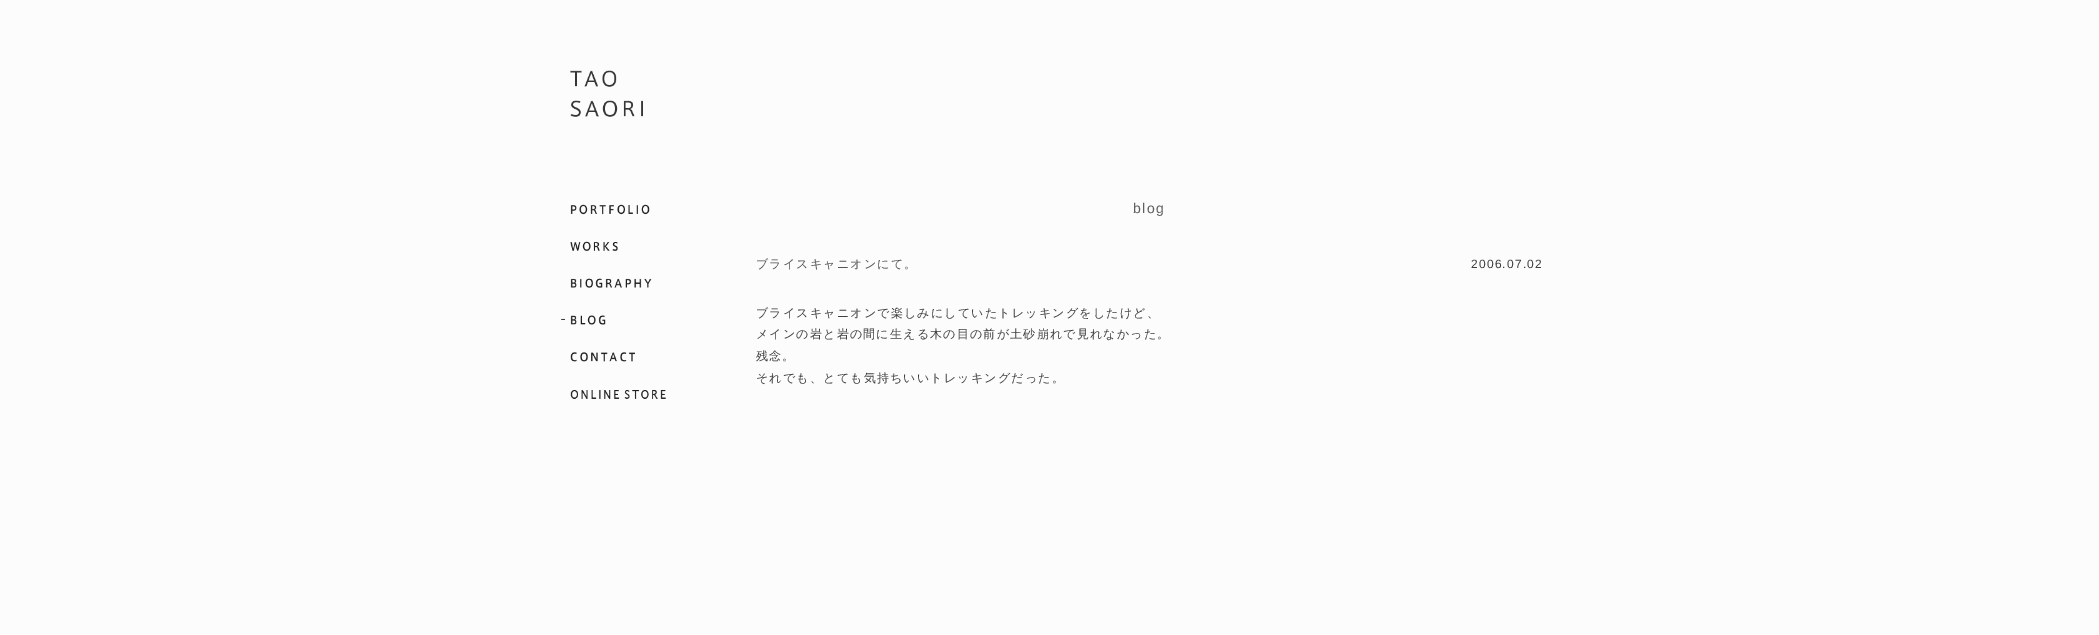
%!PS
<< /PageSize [2099 635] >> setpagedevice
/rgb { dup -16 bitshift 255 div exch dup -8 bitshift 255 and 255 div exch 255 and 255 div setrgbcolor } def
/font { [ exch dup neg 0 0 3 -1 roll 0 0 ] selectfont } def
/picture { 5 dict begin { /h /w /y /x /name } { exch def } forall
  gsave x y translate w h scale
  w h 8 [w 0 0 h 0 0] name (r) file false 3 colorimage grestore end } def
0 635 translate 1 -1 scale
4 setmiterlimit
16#FCFCFC rgb
0 0 2099 635 rectfill
(pic1.raw) 570 70 73 47 picture
(pic2.raw) 570 204 80 11 picture
(pic3.raw) 570 241 48 11 picture
(pic4.raw) 570 278 82 10 picture
(pic5.raw) 561 315 45 10 picture
(pic6.raw) 570 352 65 10 picture
(pic7.raw) 570 390 96 9 picture
/LiberationSans-Regular 14 font
16#5F5F5F rgb
1133 213 moveto 1.5 0 (blog) ashow
/WenQuanYiZenHei-Medium 12 font
16#535353 rgb
756 268 moveto 1.2 0 (ブライスキャニオンにて。) ashow
/LiberationSans-Regular 12 font
16#404040 rgb
1471 268 moveto 1.2 0 (2006.07.02) ashow
/WenQuanYiZenHei-Medium 12 font
756 317 moveto 1.2 0 (ブライスキャニオンで楽しみにしていたトレッキングをしたけど、) ashow
756 338 moveto 1.2 0 (メインの岩と岩の間に生える木の目の前が土砂崩れで見れなかった。) ashow
756 360 moveto 1.2 0 (残念。) ashow
756 382 moveto 1.2 0 (それでも、とても気持ちいいトレッキングだった。) ashow
showpage
